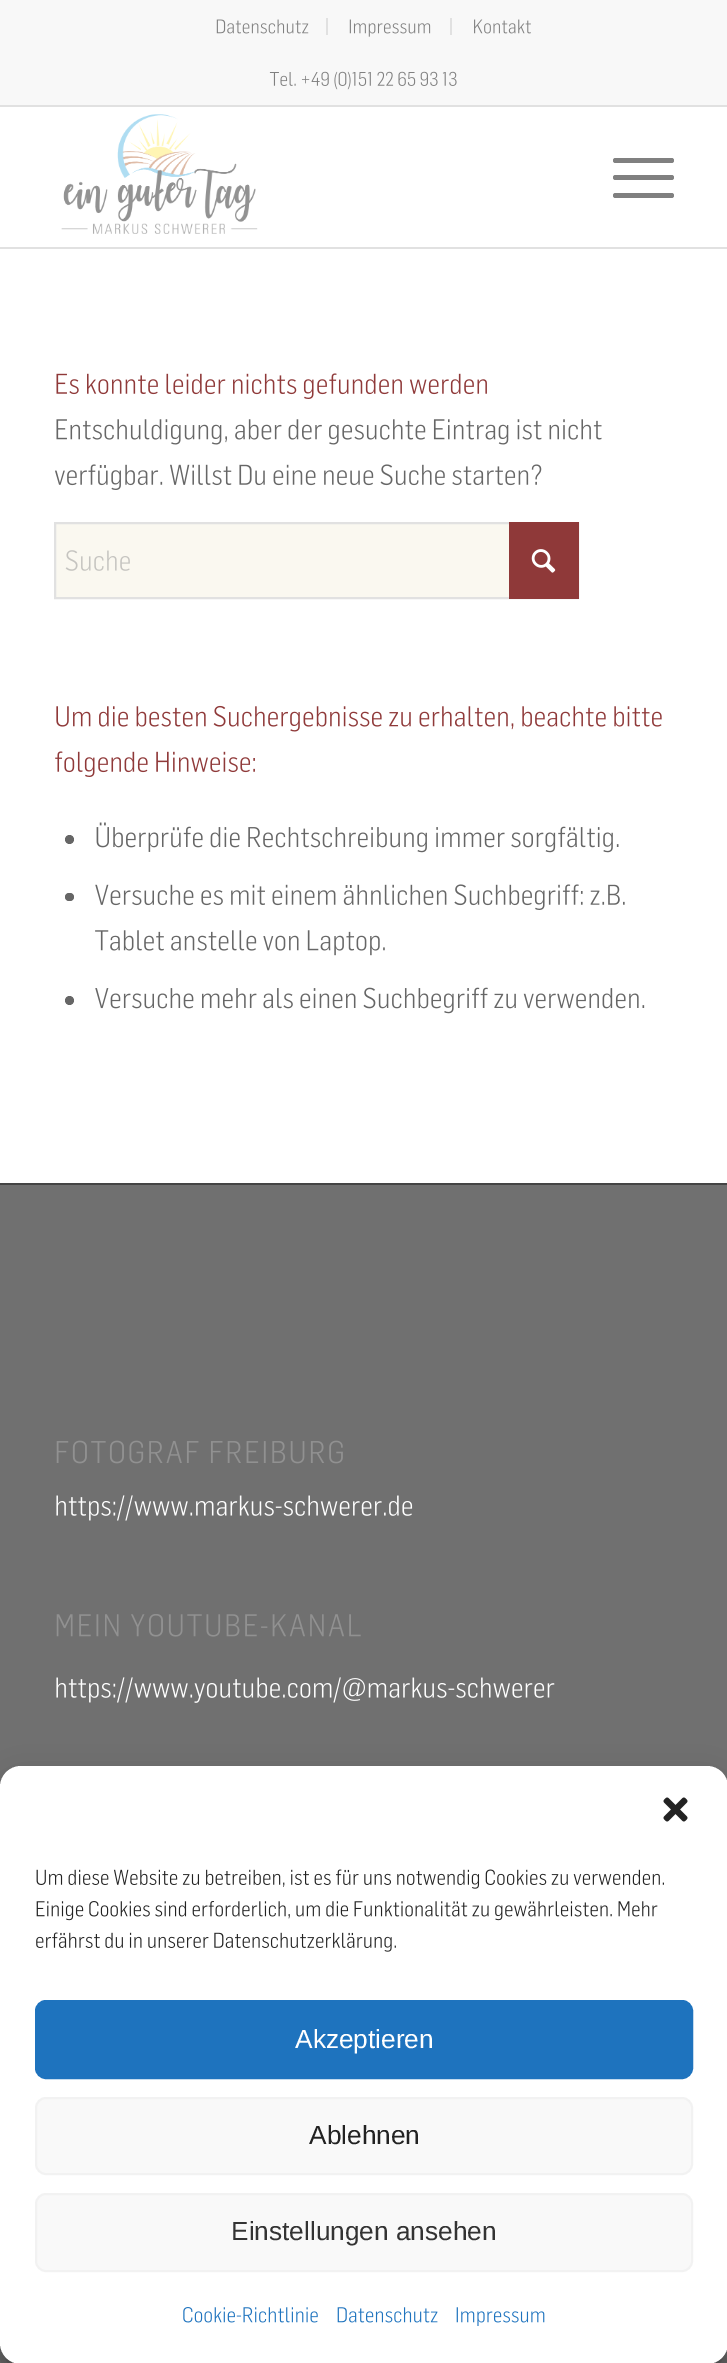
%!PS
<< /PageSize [727 2363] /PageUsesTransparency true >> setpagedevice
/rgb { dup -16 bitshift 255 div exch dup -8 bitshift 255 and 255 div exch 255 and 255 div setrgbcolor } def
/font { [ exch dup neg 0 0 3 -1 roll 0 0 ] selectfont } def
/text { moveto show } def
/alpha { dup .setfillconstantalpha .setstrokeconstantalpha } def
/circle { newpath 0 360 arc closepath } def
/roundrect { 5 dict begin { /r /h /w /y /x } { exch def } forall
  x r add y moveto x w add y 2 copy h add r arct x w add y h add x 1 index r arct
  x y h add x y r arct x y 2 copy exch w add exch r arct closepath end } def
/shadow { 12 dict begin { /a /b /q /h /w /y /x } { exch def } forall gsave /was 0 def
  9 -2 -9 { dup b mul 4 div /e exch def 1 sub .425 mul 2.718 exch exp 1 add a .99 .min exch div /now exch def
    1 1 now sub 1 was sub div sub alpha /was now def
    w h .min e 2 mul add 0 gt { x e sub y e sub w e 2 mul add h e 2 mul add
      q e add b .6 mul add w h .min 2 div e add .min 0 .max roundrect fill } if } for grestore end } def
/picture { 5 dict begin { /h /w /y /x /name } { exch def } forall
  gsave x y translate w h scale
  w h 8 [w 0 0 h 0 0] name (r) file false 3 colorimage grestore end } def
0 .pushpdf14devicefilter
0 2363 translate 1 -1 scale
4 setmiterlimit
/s1 { /LiberationSans-Regular 26.25 font 16#FFFFFF rgb } def
/s2 { /LiberationSans-Regular 26.25 font 16#222222 rgb } def
/s3 { /LiberationSans-Regular 26.25 font 16#333333 rgb } def
16#FFFFFF rgb
0 0 727 2363 rectfill
16#F8F8F8 rgb
0 0 727 105 rectfill
16#E1E1E1 rgb
0 105 727 2 rectfill
326 18 2 17 rectfill
(pic1.raw) 216 19 93 15 picture
450 18 2 17 rectfill
(pic2.raw) 349 19 82 18 picture
(pic3.raw) 474 19 57 15 picture
(pic4.raw) 269 71 188 19 picture
0 247 727 2 rectfill
(pic5.raw) 61 114 197 120 picture
16#808080 rgb
613 175 61 5 2.5 roundrect fill
613 158 61 5 2.5 roundrect fill
613 193 61 5 2.5 roundrect fill
(pic6.raw) 56 373 431 26 picture
(pic7.raw) 56 419 546 26 picture
(pic8.raw) 55 464 487 26 picture
16#FAF8F0 rgb
56 524 453 73 rectfill
16#E1E1E1 rgb
2 setlinewidth
55 523 523 75 rectstroke
(pic9.raw) 65 550 65 21 picture
16#8F3939 rgb
509 522 70 77 rectfill
(pic10.raw) 531 549 25 24 picture
(pic11.raw) 56 705 606 27 picture
(pic12.raw) 55 751 200 26 picture
16#666666 rgb
69.5 839.5 4.5 circle fill
(pic13.raw) 96 822 523 31 picture
65 893 9 8 4 roundrect fill
(pic14.raw) 95 884 530 26 picture
(pic15.raw) 95 930 290 26 picture
69.5 1000.5 4.5 circle fill
(pic16.raw) 95 987 550 27 picture
16#707070 rgb
0 1185 727 1178 rectfill
16#444444 rgb
0 1183 727 2 rectfill
(pic17.raw) 56 1440 287 24 picture
(pic18.raw) 56 1495 357 26 picture
(pic19.raw) 56 1614 305 23 picture
(pic20.raw) 56 1677 499 26 picture
16#000000 rgb
0 1776 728 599 21 5 0.23 shadow
0 1783 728 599 21 17.5 0.19 shadow
16#FFFFFF rgb
0 1766 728 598 21 roundrect fill
(pic21.raw) 663 1797 25 25 picture
(pic22.raw) 36 1869 628 20 picture
(pic23.raw) 36 1901 622 20 picture
(pic24.raw) 36 1932 360 20 picture
16#1E73BE rgb
36 2001 656 77 10 roundrect gsave fill grestore
stroke
s1
(Akzeptieren) 295 2048 text
16#F9F9F9 rgb
36 2098 656 76 10 roundrect gsave fill grestore
16#F2F2F2 rgb
stroke
s2
(Ablehnen) 309 2144 text
16#F9F9F9 rgb
36 2194 656 77 10 roundrect gsave fill grestore
16#F2F2F2 rgb
stroke
s3
(Einstellungen ansehen) 231 2240 text
(pic25.raw) 183 2307 135 16 picture
(pic26.raw) 337 2307 101 16 picture
(pic27.raw) 456 2307 89 19 picture
.poppdf14devicefilter showpage
